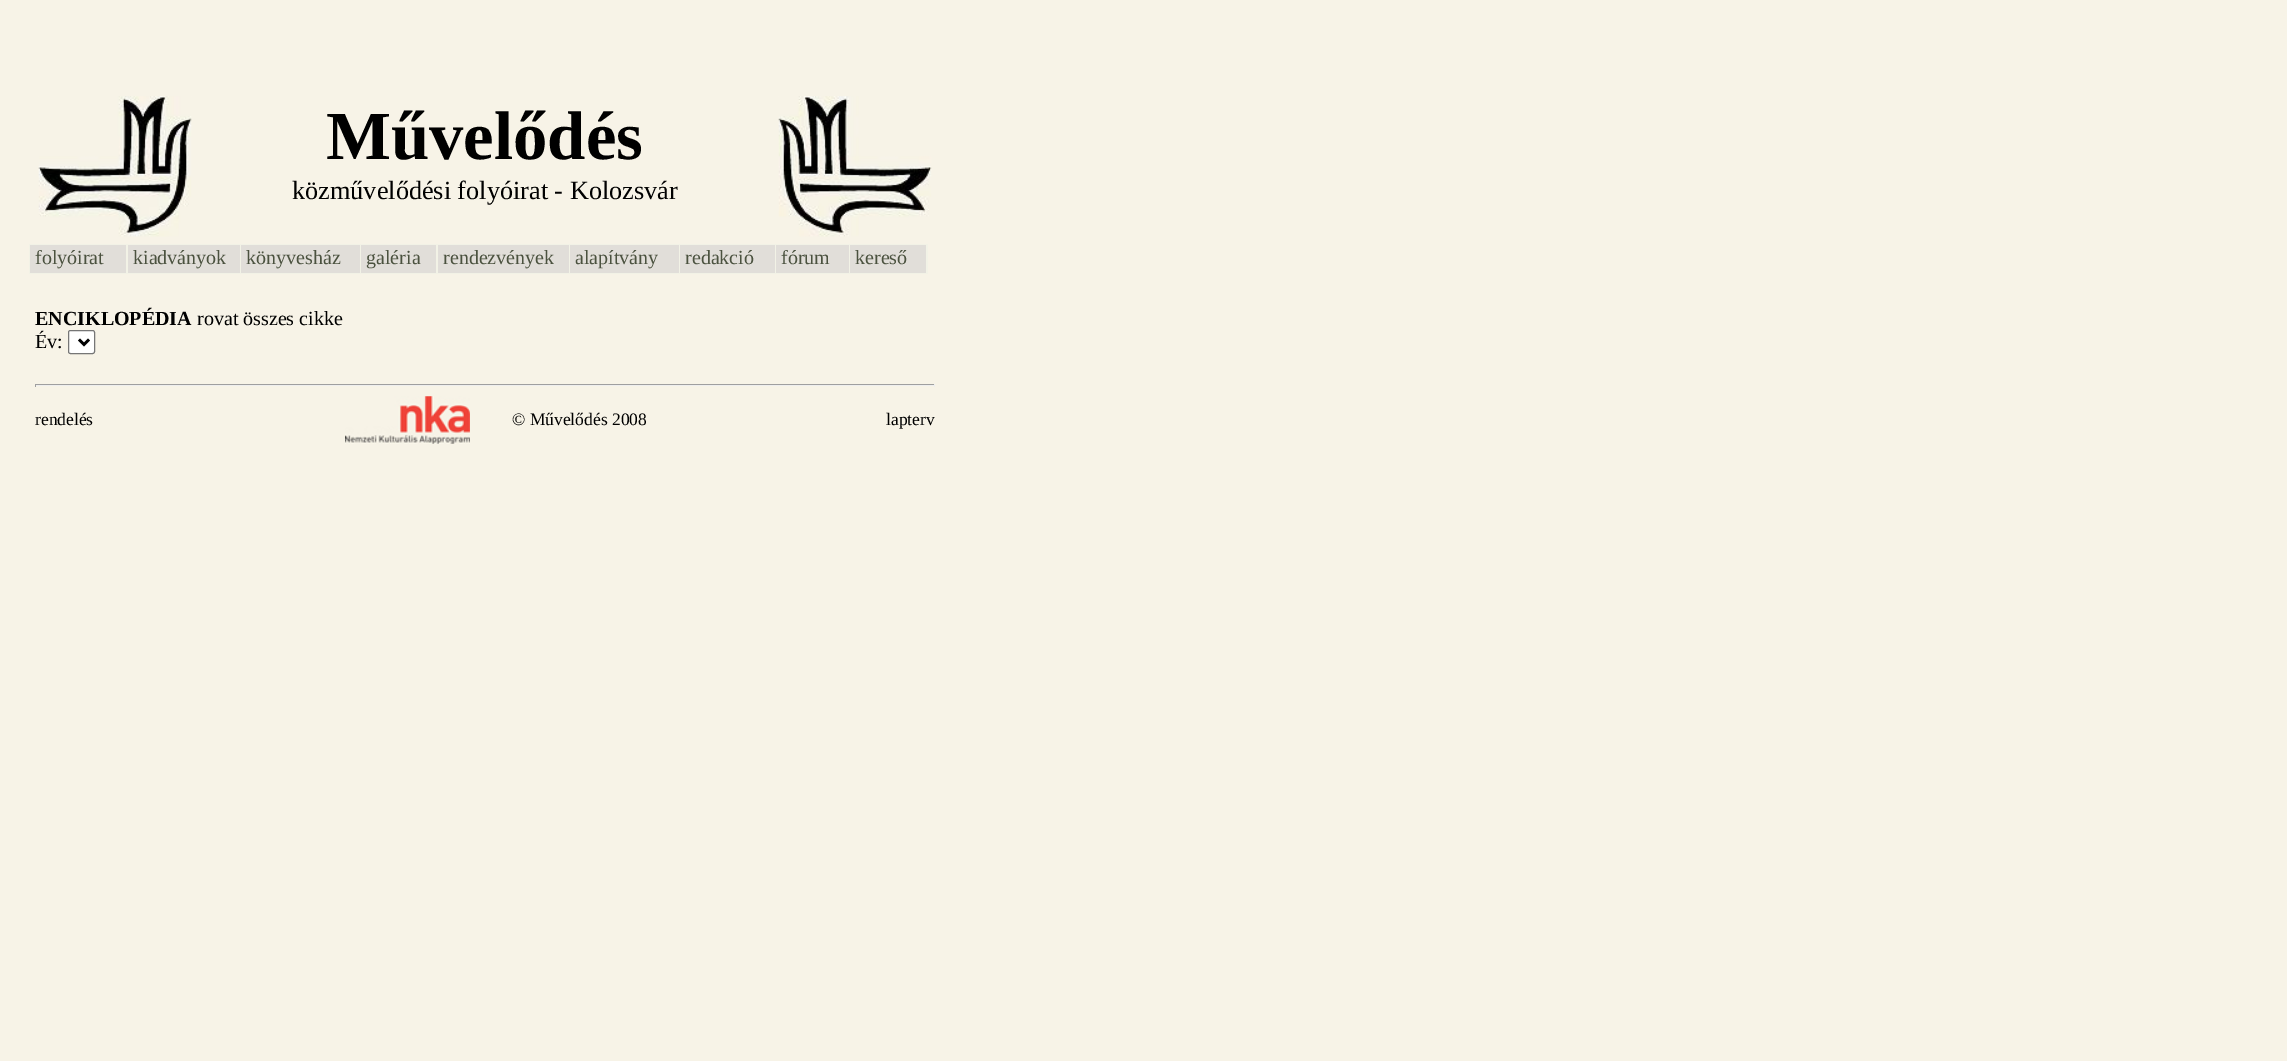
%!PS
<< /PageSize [2287 1061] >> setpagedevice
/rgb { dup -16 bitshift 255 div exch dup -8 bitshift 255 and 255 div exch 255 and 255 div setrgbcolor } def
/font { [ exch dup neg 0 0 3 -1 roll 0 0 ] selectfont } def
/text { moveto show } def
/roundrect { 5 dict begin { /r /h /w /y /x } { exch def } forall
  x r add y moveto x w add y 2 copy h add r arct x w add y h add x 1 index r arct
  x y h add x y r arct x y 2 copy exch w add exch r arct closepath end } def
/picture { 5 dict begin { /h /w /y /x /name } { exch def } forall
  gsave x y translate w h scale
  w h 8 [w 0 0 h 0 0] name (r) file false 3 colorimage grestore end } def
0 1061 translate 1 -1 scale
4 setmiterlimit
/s1 { /LiberationSerif-Bold 68.75 font 16#000000 rgb } def
/s2 { /LiberationSerif-Regular 26.25 font 16#000000 rgb } def
/s3 { /LiberationSerif-Bold 20 font 16#000000 rgb } def
/s4 { /LiberationSerif-Regular 20 font 16#000000 rgb } def
/s5 { /LiberationSerif-Regular 17.5 font 16#000000 rgb } def
/s6 { /LiberationSerif-Regular 20 font 16#4B523F rgb } def
16#F7F3E7 rgb
0 0 2287 1061 rectfill
(pic1.raw) 38 96 154 141 picture
s1
(Művelődés) 326 159 text
s2
(közművelődési folyóirat - Kolozsvár) 292 199 text
(pic2.raw) 778 96 154 141 picture
s3
(ENCIKLOPÉDIA) 35 325 text
s4
(rovat összes cikke) 197 325 text
(Év:) 35 348 text
16#FFFFFF rgb
68.5 330.5 26 23 2 roundrect gsave fill grestore
16#767676 rgb
stroke
16#000000 rgb
2.5 setlinewidth
79 339.5 moveto 84 344.5 lineto 89 339.5 lineto stroke
16#9F9F9F rgb
35 384 900 1 rectfill
16#EEEEEE rgb
934 384 1 3 rectfill
35 385 900 1 rectfill
16#9F9F9F rgb
35 384 1 3 rectfill
s5
(rendelés) 35 425 text
(pic3.raw) 345 396 125 48 picture
(© Művelődés 2008) 512 425 text
(lapterv) 886 425 text
16#F2F2E6 rgb
29 244 899 30 rectfill
16#E1DED9 rgb
30 245 96 28 rectfill
s6
(folyóirat) 35 264 text
16#E1DED9 rgb
128 245 112 28 rectfill
s6
(kiadványok) 133 264 text
16#E1DED9 rgb
241 245 119 28 rectfill
s6
(könyvesház) 246 264 text
16#E1DED9 rgb
361 245 75 28 rectfill
s6
(galéria) 366 264 text
16#E1DED9 rgb
438 245 131 28 rectfill
s6
(rendezvények) 443 264 text
16#E1DED9 rgb
570 245 109 28 rectfill
s6
(alapítvány) 575 264 text
16#E1DED9 rgb
680 245 95 28 rectfill
s6
(redakció) 685 264 text
16#E1DED9 rgb
776 245 73 28 rectfill
s6
(fórum) 781 264 text
16#E1DED9 rgb
850 245 76 28 rectfill
s6
(kereső) 855 264 text
showpage
